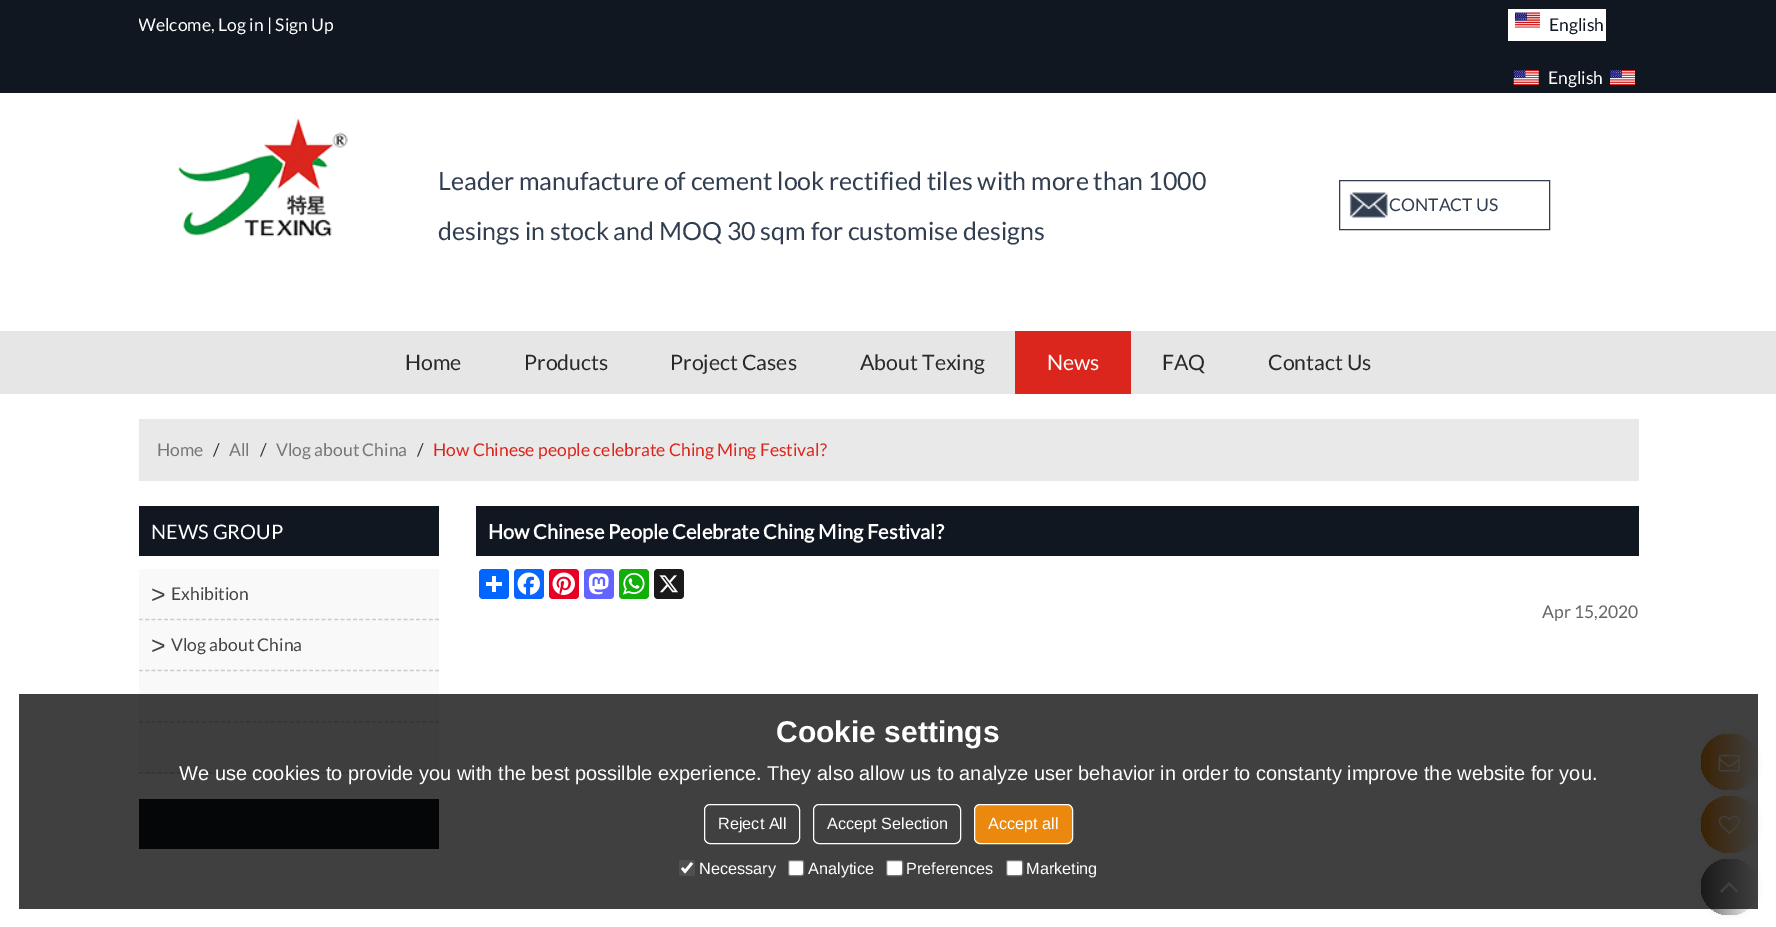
%!PS
<< /PageSize [1776 927] /PageUsesTransparency true >> setpagedevice
/rgb { dup -16 bitshift 255 div exch dup -8 bitshift 255 and 255 div exch 255 and 255 div setrgbcolor } def
/font { [ exch dup neg 0 0 3 -1 roll 0 0 ] selectfont } def
/text { moveto show } def
/alpha { dup .setfillconstantalpha .setstrokeconstantalpha } def
/circle { newpath 0 360 arc closepath } def
/roundrect { 5 dict begin { /r /h /w /y /x } { exch def } forall
  x r add y moveto x w add y 2 copy h add r arct x w add y h add x 1 index r arct
  x y h add x y r arct x y 2 copy exch w add exch r arct closepath end } def
/shadow { 12 dict begin { /a /b /q /h /w /y /x } { exch def } forall gsave /was 0 def
  9 -2 -9 { dup b mul 4 div /e exch def 1 sub .425 mul 2.718 exch exp 1 add a .99 .min exch div /now exch def
    1 1 now sub 1 was sub div sub alpha /was now def
    w h .min e 2 mul add 0 gt { x e sub y e sub w e 2 mul add h e 2 mul add
      q e add b .6 mul add w h .min 2 div e add .min 0 .max roundrect fill } if } for grestore end } def
/picture { 5 dict begin { /h /w /y /x /name } { exch def } forall
  gsave x y translate w h scale
  w h 8 [w 0 0 h 0 0] name (r) file false 3 colorimage grestore end } def
0 .pushpdf14devicefilter
0 927 translate 1 -1 scale
4 setmiterlimit
/s1 { /Lato-Regular 17.5 font 16#FFFFFF rgb } def
/s2 { /Lato-Regular 17.5 font 16#101721 rgb } def
/s3 { /Lato-Regular 25 font 16#313E50 rgb } def
/s4 { /Lato-Regular 17.5 font 16#313E50 rgb } def
/s5 { /Lato-Regular 21.25 font 16#27292A rgb } def
/s6 { /Lato-Regular 21.25 font 16#FFFFFF rgb } def
/s7 { /Lato-Regular 17.5 font 16#777777 rgb } def
/s8 { /Lato-Regular 17.5 font 16#333333 rgb } def
/s9 { /Lato-Regular 17.5 font 16#DB261D rgb } def
/s10 { /Lato-Regular 20 font 16#FFFFFF rgb } def
/s11 { /LiberationSans-Regular 25 font 16#444444 rgb } def
/s12 { /Lato-Regular 17.5 font 16#444444 rgb } def
/s13 { /Lato-Bold 20 font 16#FFFFFF rgb } def
/s14 { /Lato-Regular 17.5 font 16#666666 rgb } def
/s15 { /LiberationSans-Bold 30 font 16#FFFFFF rgb } def
/s16 { /LiberationSans-Regular 20 font 16#FFFFFF rgb } def
/s17 { /LiberationSans-Regular 16.25 font 16#FFFFFF rgb } def
16#FFFFFF rgb
0 0 1776 927 rectfill
16#101721 rgb
0 0 1776 93 rectfill
gsave
139 0 1500 93 rectclip
s1
(Welcome,) 138 31 text
grestore
s1
(Log in | Sign Up) 218 31 text
1508 9 98 32 rectfill
(pic1.raw) 1515 12 25 16 picture
s2
(English) 1549 31 text
(pic2.raw) 1513 70 26 15 picture
s1
(English) 1548 84 text
(pic3.raw) 1610 70 25 15 picture
(pic4.raw) 178 118 170 119 picture
s3
(Leader manufacture of cement look rectified tiles with more than 1000) 438 190 text
(desings in stock and MOQ 30 sqm for customise designs) 438 240 text
(pic5.raw) 1349 192 39 26 picture
1339.5 180.5 210 49 rectstroke
s4
(CONTACT US) 1389 211 text
16#E6E6E6 rgb
0 331 1776 63 rectfill
s5
(Home) 405 370 text
(Products) 524 370 text
(Project Cases) 670 370 text
(About Texing) 860 370 text
16#DB261D rgb
1015 331 116 63 rectfill
s6
(News) 1047 370 text
s5
(FAQ) 1162 370 text
(Contact Us) 1268 370 text
16#E9E9E9 rgb
139 419 1500 62 rectfill
s7
(Home) 157 456 text
s8
(/) 213 456 text
s7
(All) 229 456 text
s8
(/) 260 456 text
s7
(Vlog about China) 276 456 text
s8
(/) 417 456 text
s9
(How Chinese people celebrate Ching Ming Festival?) 433 456 text
16#101721 rgb
139 506 300 50 rectfill
s10
(NEWS GROUP) 151 539 text
16#F9F9F9 rgb
139 569 300 205 rectfill
16#CCCCCC rgb
1.2 setlinewidth
[3.75 2.55] 0 setdash
139 619.5 moveto 439 619.5 lineto stroke
s11
(>) 151 603 text
s12
(Exhibition) 171 600 text
16#CCCCCC rgb
139 670.5 moveto 439 670.5 lineto stroke
s11
(>) 151 654 text
s12
(Vlog about China) 171 651 text
16#CCCCCC rgb
139 722 moveto 439 722 lineto stroke
139 773 moveto 439 773 lineto stroke
16#101721 rgb
139 799 300 50 rectfill
476 506 1163 50 rectfill
s13
(How Chinese People Celebrate Ching Ming Festival?) 488 539 text
16#0166FF rgb
479 569 30 30 4 roundrect fill
16#FFFFFF rgb
492 576 4 16 rectfill
486 582 16 4 rectfill
16#0866FF rgb
514 569 30 30 4 roundrect fill
(pic6.raw) 517 572 23 23 picture
16#E60023 rgb
549 569 30 30 4 roundrect fill
(pic7.raw) 552 572 23 23 picture
16#6364FF rgb
584 569 30 30 4 roundrect fill
(pic8.raw) 588 573 21 22 picture
16#12AF0A rgb
619 569 30 30 4 roundrect fill
(pic9.raw) 623 572 22 23 picture
16#1A1A1A rgb
654 569 30 30 4 roundrect fill
(pic10.raw) 659 575 19 18 picture
s14
(Apr 15,2020) 1542 618 text
16#EEEEEE rgb
1701 734 57 56 28 3 1 shadow
gsave 1701 734 57 56 28 roundrect clip newpath
<< /ShadingType 2 /ColorSpace /DeviceRGB /Coords [1701 762 1758 762] /Extend [true true] /Function << /FunctionType 2 /Domain [0 1] /C0 [0.922 0.533 0.055] /C1 [1 1 1] /N 1 >> >> shfill grestore
(pic11.raw) 1718 754 22 18 picture
1701 796 57 57 28.5 3 1 shadow
gsave 1729.5 824.5 28.5 circle clip newpath
<< /ShadingType 2 /ColorSpace /DeviceRGB /Coords [1701 824 1758 824] /Extend [true true] /Function << /FunctionType 2 /Domain [0 1] /C0 [0.922 0.533 0.055] /C1 [1 1 1] /N 1 >> >> shfill grestore
(pic12.raw) 1718 815 22 19 picture
1701 859 57 56 28 3 1 shadow
gsave 1701 859 57 56 28 roundrect clip newpath
<< /ShadingType 2 /ColorSpace /DeviceRGB /Coords [1701 887 1758 887] /Extend [true true] /Function << /FunctionType 2 /Domain [0 1] /C0 [0.4 0.4 0.4] /C1 [1 1 1] /N 1 >> >> shfill grestore
(pic13.raw) 1720 882 19 11 picture
0.75 alpha
16#000000 rgb
19 694 1739 215 rectfill
1 alpha
s15
(Cookie settings) 776 742 text
s16
(We use cookies to provide you with the best possilble experience. They also allow us to analyze user behavior in order to constanty improve the website for you.) 179 780 text
1 setlinewidth
[] 0 setdash
704.5 804.5 95 39 5.5 roundrect stroke
s17
(Reject All) 718 829 text
813.5 804.5 147 39 5.5 roundrect stroke
(Accept Selection) 827 829 text
16#EB880E rgb
974.5 804.5 98 39 5.5 roundrect gsave fill grestore
16#FFFFFF rgb
stroke
(Accept all) 988 829 text
16#505050 rgb
679 860 16 16 2.5 roundrect fill
16#FFFFFF rgb
2.6 setlinewidth
682 868 moveto 685 871.5 lineto 692 863 lineto stroke
(Necessary) 699 874 text
788.5 860.5 15 15 2 roundrect gsave fill grestore
16#767676 rgb
1 setlinewidth
stroke
s17
(Analytice) 808 874 text
886.5 860.5 16 15 2 roundrect gsave fill grestore
16#767676 rgb
stroke
s17
(Preferences) 906 874 text
1006.5 860.5 16 15 2 roundrect gsave fill grestore
16#767676 rgb
stroke
s17
(Marketing) 1026 874 text
.poppdf14devicefilter showpage
